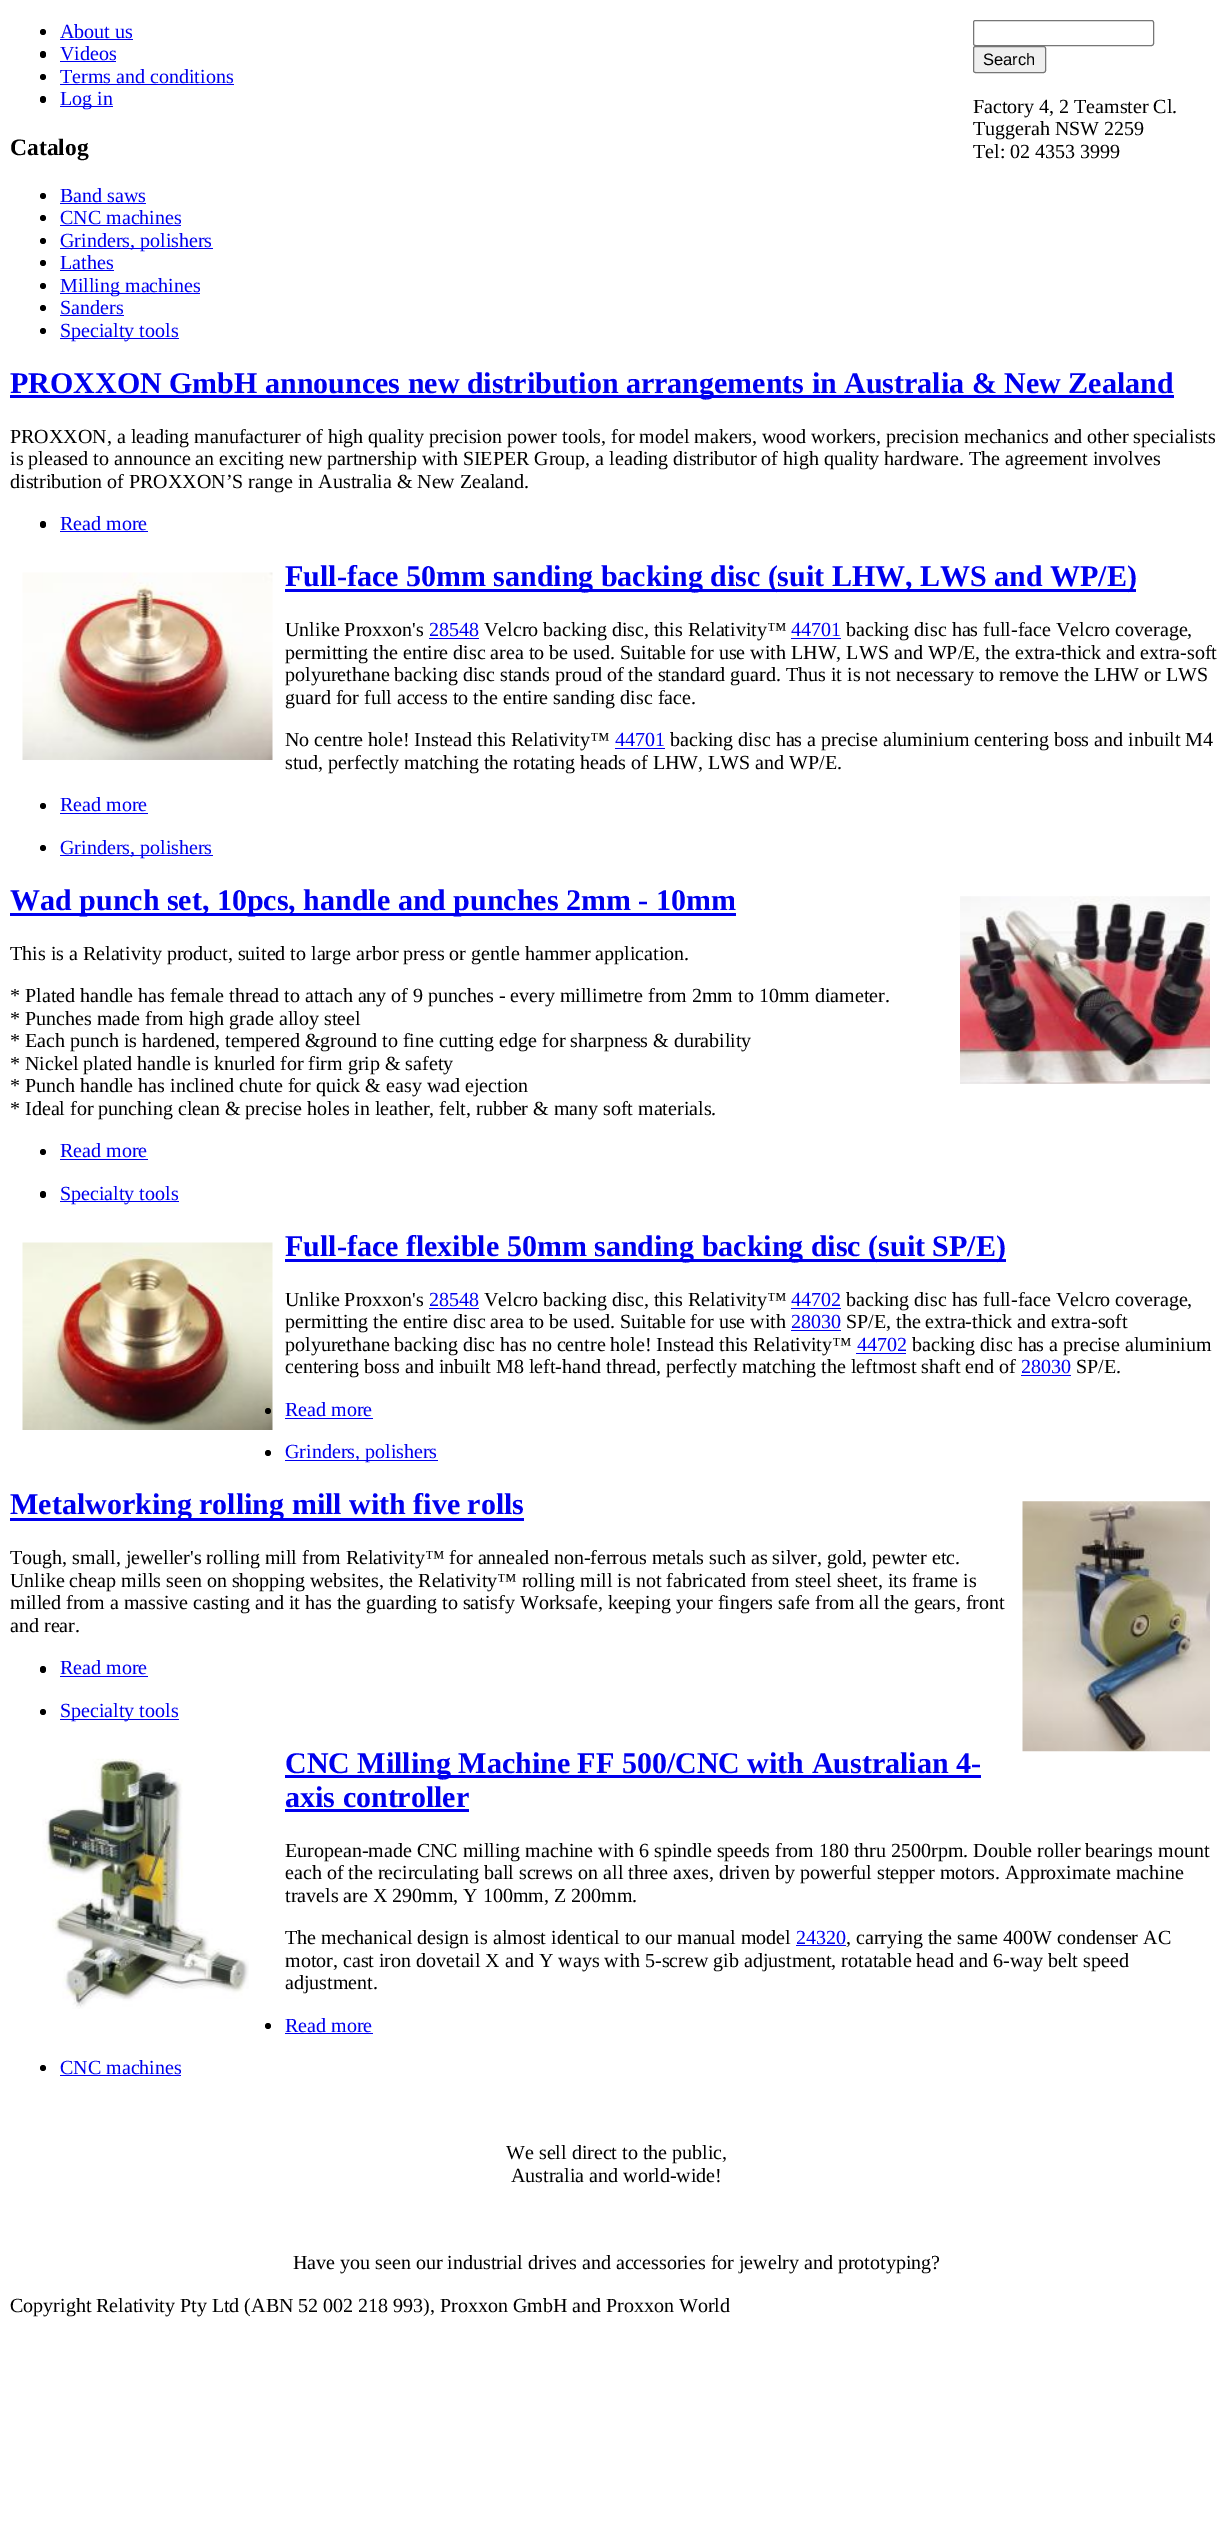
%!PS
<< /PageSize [1232 2530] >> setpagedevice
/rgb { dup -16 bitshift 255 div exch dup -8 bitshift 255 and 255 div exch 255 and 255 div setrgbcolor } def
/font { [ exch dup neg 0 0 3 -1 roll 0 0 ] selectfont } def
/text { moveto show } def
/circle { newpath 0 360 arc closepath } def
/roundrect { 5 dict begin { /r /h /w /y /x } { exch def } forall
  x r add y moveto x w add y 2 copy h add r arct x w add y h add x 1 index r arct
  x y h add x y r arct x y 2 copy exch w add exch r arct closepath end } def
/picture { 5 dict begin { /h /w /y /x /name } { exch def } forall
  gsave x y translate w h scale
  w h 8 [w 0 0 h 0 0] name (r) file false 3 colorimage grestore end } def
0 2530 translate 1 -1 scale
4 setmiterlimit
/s1 { /LiberationSerif-Regular 20 font 16#0000EE rgb } def
/s2 { /LiberationSans-Regular 16.5 font 16#000000 rgb } def
/s3 { /LiberationSerif-Regular 20 font 16#000000 rgb } def
/s4 { /LiberationSerif-Bold 23.5 font 16#000000 rgb } def
/s5 { /LiberationSerif-Bold 30 font 16#0000EE rgb } def
16#FFFFFF rgb
0 0 1232 2530 rectfill
16#000000 rgb
43 32 3 circle fill
s1
(About us) 60 38 text
60 39 73 1 rectfill
16#000000 rgb
40 51 6 7 3 roundrect fill
s1
(Videos) 60 60 text
60 61 56 1 rectfill
16#000000 rgb
43 77 3 circle fill
s1
(Terms and conditions) 60 83 text
60 84 174 1 rectfill
16#000000 rgb
40 96 6 7 3 roundrect fill
16#0000EE rgb
60 106 53 1 rectfill
(Log in) 60 105 text
16#767676 rgb
973.5 20.5 180 25 2 roundrect stroke
16#EFEFEF rgb
973.5 46.5 72 26 2 roundrect gsave fill grestore
16#767676 rgb
stroke
s2
(Search) 983 65 text
s3
(Factory 4, 2 Teamster Cl.) 973 113 text
(Tuggerah NSW 2259) 973 135 text
(Tel: 02 4353 3999) 973 158 text
s4
(Catalog) 10 155 text
43 196 3 circle fill
s1
(Band saws) 60 202 text
60 203 86 1 rectfill
16#000000 rgb
43 218 3 circle fill
s1
(CNC machines) 60 224 text
60 225 121 1 rectfill
16#000000 rgb
43 241 3 circle fill
16#0000EE rgb
60 248 153 1 rectfill
(Grinders, polishers) 60 247 text
16#000000 rgb
43 263 3 circle fill
s1
(Lathes) 60 269 text
60 270 54 1 rectfill
16#000000 rgb
43 286 3 circle fill
16#0000EE rgb
60 293 140 1 rectfill
(Milling machines) 60 292 text
16#000000 rgb
43 308 3 circle fill
s1
(Sanders) 60 314 text
60 315 64 1 rectfill
16#000000 rgb
43 331 3 circle fill
16#0000EE rgb
60 338 119 1 rectfill
(Specialty tools) 60 337 text
10 395 1164 3 rectfill
s5
(PROXXON GmbH announces new distribution arrangements in Australia & New Zealand) 10 393 text
s3
(PROXXON, a leading manufacturer of high quality precision power tools, for model makers, wood workers, precision mechanics and other specialists) 10 443 text
(is pleased to announce an exciting new partnership with SIEPER Group, a leading distributor of high quality hardware. The agreement involves) 10 465 text
(distribution of PROXXON’S range in Australia & New Zealand.) 10 488 text
40 521 6 7 3 roundrect fill
s1
(Read more) 60 530 text
60 531 88 1 rectfill
(pic1.raw) 22 572 251 188 picture
285 589 851 3 rectfill
s5
(Full-face 50mm sanding backing disc \(suit LHW, LWS and WP/E\)) 285 586 text
s3
(Unlike Proxxon's) 285 636 text
s1
(28548) 429 636 text
429 638 50 1 rectfill
s3
(Velcro backing disc, this Relativity™) 484 636 text
s1
(44701) 791 636 text
791 638 50 1 rectfill
s3
(backing disc has full-face Velcro coverage,) 846 636 text
(permitting the entire disc area to be used. Suitable for use with LHW, LWS and WP/E, the extra-thick and extra-soft) 285 659 text
(polyurethane backing disc stands proud of the standard guard. Thus it is not necessary to remove the LHW or LWS) 285 681 text
(guard for full access to the entire sanding disc face.) 285 704 text
(No centre hole! Instead this Relativity™) 285 746 text
s1
(44701) 615 746 text
615 748 50 1 rectfill
s3
(backing disc has a precise aluminium centering boss and inbuilt M4) 670 746 text
(stud, perfectly matching the rotating heads of LHW, LWS and WP/E.) 285 769 text
43 806 3 circle fill
s1
(Read more) 60 811 text
60 813 88 1 rectfill
16#000000 rgb
43 848 3 circle fill
16#0000EE rgb
60 855 153 1 rectfill
(Grinders, polishers) 60 854 text
10 913 726 3 rectfill
s5
(Wad punch set, 10pcs, handle and punches 2mm - 10mm) 10 910 text
s3
(This is a Relativity product, suited to large arbor press or gentle hammer application.) 10 960 text
(* Plated handle has female thread to attach any of 9 punches - every millimetre from 2mm to 10mm diameter.) 10 1002 text
(* Punches made from high grade alloy steel) 10 1025 text
(* Each punch is hardened, tempered &ground to fine cutting edge for sharpness & durability) 10 1047 text
(* Nickel plated handle is knurled for firm grip & safety) 10 1070 text
(* Punch handle has inclined chute for quick & easy wad ejection) 10 1092 text
(* Ideal for punching clean & precise holes in leather, felt, rubber & many soft materials.) 10 1115 text
(pic2.raw) 960 896 250 188 picture
43 1152 3 circle fill
s1
(Read more) 60 1157 text
60 1159 88 1 rectfill
16#000000 rgb
40 1191 6 7 3 roundrect fill
16#0000EE rgb
60 1201 119 1 rectfill
(Specialty tools) 60 1200 text
(pic3.raw) 22 1242 251 188 picture
285 1259 721 3 rectfill
s5
(Full-face flexible 50mm sanding backing disc \(suit SP/E\)) 285 1256 text
s3
(Unlike Proxxon's) 285 1306 text
s1
(28548) 429 1306 text
429 1308 50 1 rectfill
s3
(Velcro backing disc, this Relativity™) 484 1306 text
s1
(44702) 791 1306 text
791 1308 50 1 rectfill
s3
(backing disc has full-face Velcro coverage,) 846 1306 text
(permitting the entire disc area to be used. Suitable for use with) 285 1328 text
s1
(28030) 791 1328 text
791 1330 50 1 rectfill
s3
(SP/E, the extra-thick and extra-soft) 846 1328 text
(polyurethane backing disc has no centre hole! Instead this Relativity™) 285 1351 text
s1
(44702) 857 1351 text
856 1353 50 1 rectfill
s3
(backing disc has a precise aluminium) 912 1351 text
(centering boss and inbuilt M8 left-hand thread, perfectly matching the leftmost shaft end of) 285 1373 text
s1
(28030) 1021 1373 text
1021 1375 50 1 rectfill
s3
(SP/E.) 1076 1373 text
268 1411 3 circle fill
s1
(Read more) 285 1416 text
285 1418 88 1 rectfill
16#000000 rgb
268 1453 3 circle fill
16#0000EE rgb
285 1460 153 1 rectfill
(Grinders, polishers) 285 1458 text
10 1518 514 3 rectfill
s5
(Metalworking rolling mill with five rolls) 10 1514 text
s3
(Tough, small, jeweller's rolling mill from Relativity™ for annealed non-ferrous metals such as silver, gold, pewter etc.) 10 1564 text
(Unlike cheap mills seen on shopping websites, the Relativity™ rolling mill is not fabricated from steel sheet, its frame is) 10 1587 text
(milled from a massive casting and it has the guarding to satisfy Worksafe, keeping your fingers safe from all the gears, front) 10 1609 text
(and rear.) 10 1632 text
(pic4.raw) 1022 1501 188 251 picture
40 1666 6 7 3 roundrect fill
s1
(Read more) 60 1674 text
60 1676 88 1 rectfill
16#000000 rgb
43 1712 3 circle fill
16#0000EE rgb
60 1719 119 1 rectfill
(Specialty tools) 60 1717 text
(pic5.raw) 42 1758 207 251 picture
285 1775 696 3 rectfill
s5
(CNC Milling Machine FF 500/CNC with Australian 4-) 285 1773 text
(axis controller) 285 1807 text
285 1809 184 3 rectfill
s3
(European-made CNC milling machine with 6 spindle speeds from 180 thru 2500rpm. Double roller bearings mount) 285 1857 text
(each of the recirculating ball screws on all three axes, driven by powerful stepper motors. Approximate machine) 285 1879 text
(travels are X 290mm, Y 100mm, Z 200mm.) 285 1902 text
(The mechanical design is almost identical to our manual model) 285 1944 text
s1
(24320) 796 1944 text
796 1945 50 1 rectfill
s3
(, carrying the same 400W condenser AC) 846 1944 text
(motor, cast iron dovetail X and Y ways with 5-screw gib adjustment, rotatable head and 6-way belt speed) 285 1967 text
(adjustment.) 285 1989 text
268 2026 3 circle fill
s1
(Read more) 285 2032 text
285 2033 88 1 rectfill
16#000000 rgb
43 2068 3 circle fill
s1
(CNC machines) 60 2074 text
60 2075 121 1 rectfill
s3
(We sell direct to the public,) 506 2159 text
(Australia and world-wide!) 511 2182 text
(Have you seen our industrial drives and accessories for jewelry and prototyping?) 293 2269 text
(Copyright Relativity Pty Ltd \(ABN 52 002 218 993\), Proxxon GmbH and Proxxon World) 10 2312 text
showpage
